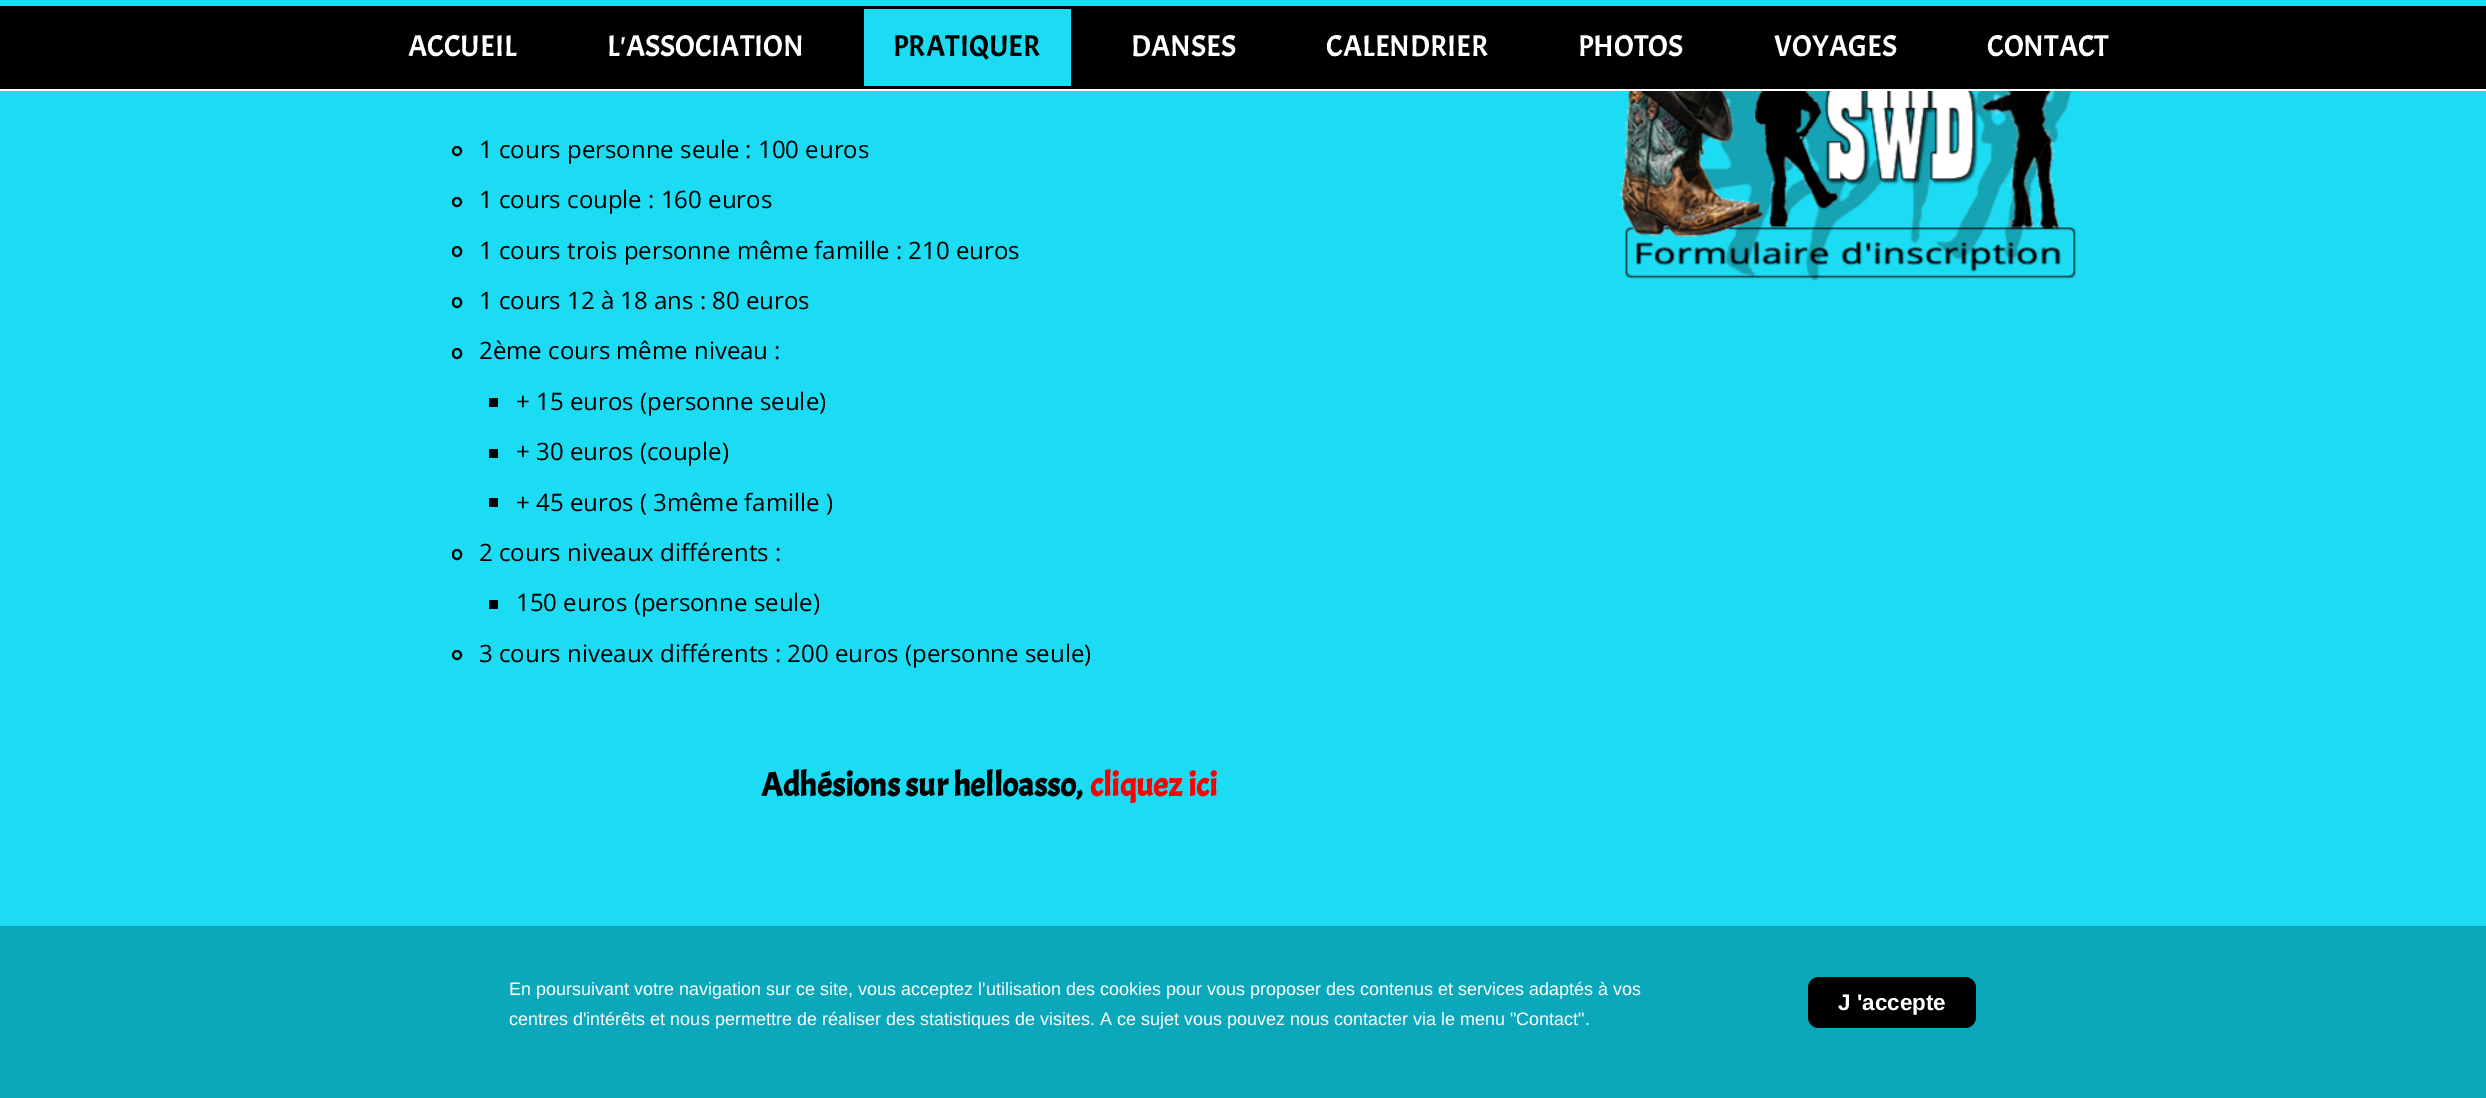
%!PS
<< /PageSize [2486 1098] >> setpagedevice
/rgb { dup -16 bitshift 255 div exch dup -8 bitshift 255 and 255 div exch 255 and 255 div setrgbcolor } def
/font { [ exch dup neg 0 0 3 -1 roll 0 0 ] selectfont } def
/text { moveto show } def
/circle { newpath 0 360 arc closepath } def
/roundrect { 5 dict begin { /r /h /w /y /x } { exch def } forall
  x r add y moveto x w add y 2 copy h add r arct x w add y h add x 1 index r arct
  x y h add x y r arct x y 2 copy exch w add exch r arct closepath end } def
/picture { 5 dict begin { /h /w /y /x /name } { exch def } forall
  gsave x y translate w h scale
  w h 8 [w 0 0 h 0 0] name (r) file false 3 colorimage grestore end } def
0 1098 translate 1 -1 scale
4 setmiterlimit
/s1 { /Acme-Regular 30 font 16#FFFFFF rgb } def
/s2 { /Acme-Regular 30 font 16#000000 rgb } def
/s3 { /OpenSans-Regular 24 font 16#000000 rgb } def
/s4 { /Acme-Bold 33.5 font 16#000000 rgb } def
/s5 { /Acme-Bold 33.5 font 16#FF0000 rgb } def
/s6 { /LiberationSans-Regular 18 font 16#FFFFFF rgb } def
/s7 { /LiberationSans-Bold 22.5 font 16#FFFFFF rgb } def
16#1CDCF3 rgb
0 0 2486 1098 rectfill
16#000000 rgb
0 6 2486 83 rectfill
16#FFFFFF rgb
0 89 2486 2 rectfill
s1
(ACCUEIL) 408 56 text
(L'ASSOCIATION) 607 56 text
16#1CDCF3 rgb
864 9 207 77 rectfill
s2
(PRATIQUER) 893 56 text
s1
(DANSES) 1131 56 text
(CALENDRIER) 1326 56 text
(PHOTOS) 1578 56 text
(VOYAGES) 1774 56 text
(CONTACT) 1987 56 text
16#000000 rgb
2 setlinewidth
457 151 4 circle stroke
s3
(1 cours personne seule : 100 euros) 479 158 text
457 202 4 circle stroke
(1 cours couple : 160 euros) 479 208 text
453 247 8 9 4 roundrect stroke
(1 cours trois personne même famille : 210 euros) 479 259 text
453 298 8 9 4 roundrect stroke
(1 cours 12 à 18 ans : 80 euros) 479 309 text
453 349 8 9 4 roundrect stroke
(2ème cours même niveau :) 479 359 text
489 398 9 9 rectfill
(+ 15 euros \(personne seule\)) 516 410 text
489 449 9 9 rectfill
(+ 30 euros \(couple\)) 516 460 text
489 498 9 9 rectfill
(+ 45 euros \( 3même famille \)) 516 511 text
453 550 8 9 4 roundrect stroke
(2 cours niveaux différents :) 479 561 text
489 600 9 9 rectfill
(150 euros \(personne seule\)) 516 611 text
457 655 4 circle stroke
(3 cours niveaux différents : 200 euros \(personne seule\)) 479 662 text
s4
(Adhésions sur helloasso,) 761 796 text
s5
(cliquez ici) 1090 796 text
(pic1.raw) 1597 91 479 190 picture
16#0AA8BA rgb
0 926 2486 172 rectfill
s6
(En poursuivant votre navigation sur ce site, vous acceptez l'utilisation des cookies pour vous proposer des contenus et services adaptés à vos) 509 995 text
(centres d'intérêts et nous permettre de réaliser des statistiques de visites. A ce sujet vous pouvez nous contacter via le menu "Contact".) 509 1025 text
16#000000 rgb
1808 977 168 51 11 roundrect fill
s7
(J 'accepte) 1838 1010 text
showpage
